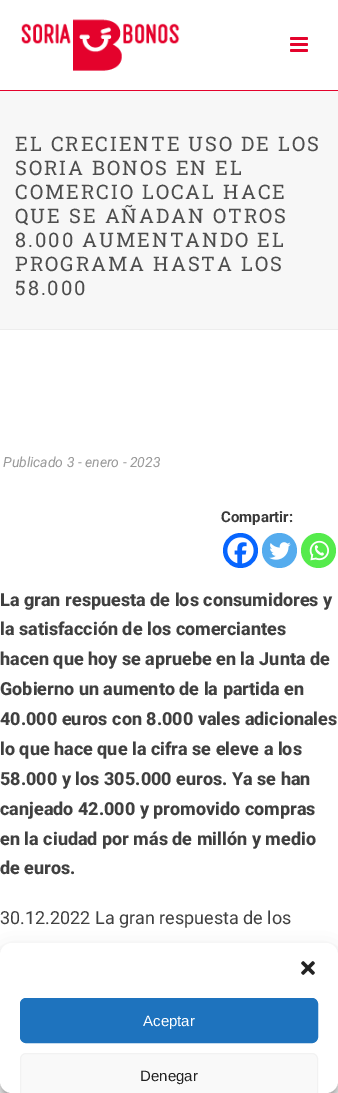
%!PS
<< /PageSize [338 1093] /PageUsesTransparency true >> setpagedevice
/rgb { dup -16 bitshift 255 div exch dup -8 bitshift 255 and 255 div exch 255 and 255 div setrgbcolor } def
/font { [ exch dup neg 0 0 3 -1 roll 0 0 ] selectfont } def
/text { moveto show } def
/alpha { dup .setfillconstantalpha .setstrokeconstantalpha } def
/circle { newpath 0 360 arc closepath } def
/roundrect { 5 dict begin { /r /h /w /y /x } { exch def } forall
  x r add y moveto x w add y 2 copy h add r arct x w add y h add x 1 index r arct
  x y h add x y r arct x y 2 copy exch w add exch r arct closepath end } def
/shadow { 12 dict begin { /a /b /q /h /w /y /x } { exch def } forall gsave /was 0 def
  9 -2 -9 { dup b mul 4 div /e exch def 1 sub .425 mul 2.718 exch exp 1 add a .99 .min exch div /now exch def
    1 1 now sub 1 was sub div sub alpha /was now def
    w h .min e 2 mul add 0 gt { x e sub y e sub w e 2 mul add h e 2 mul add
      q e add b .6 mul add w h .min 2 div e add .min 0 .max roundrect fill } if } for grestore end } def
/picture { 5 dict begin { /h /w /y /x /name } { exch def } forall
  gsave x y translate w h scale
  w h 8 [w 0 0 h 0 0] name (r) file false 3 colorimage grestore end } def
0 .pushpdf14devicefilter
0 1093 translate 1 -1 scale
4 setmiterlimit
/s1 { /Roboto-Italic 14 font 16#999999 rgb } def
/s2 { /Roboto-Bold 15 font 16#3A3A3A rgb } def
/s3 { /Roboto-ExtraBold 18 font 16#404040 rgb } def
/s4 { /Roboto-Regular 18 font 16#404040 rgb } def
/s5 { /LiberationSans-Regular 15 font 16#FFFFFF rgb } def
/s6 { /LiberationSans-Regular 15 font 16#222222 rgb } def
16#FFFFFF rgb
0 0 338 1093 rectfill
16#F7F7F7 rgb
0 91 338 238 rectfill
16#EDEDED rgb
0 329 338 1 rectfill
16#E4032C rgb
0 90 338 1 rectfill
(pic1.raw) 21 19 159 52 picture
290 37 18 3 1.5 roundrect fill
290 43 18 3 1.5 roundrect fill
290 49 18 3 1.5 roundrect fill
/RobotoSlab-Regular 20 font
16#4D4D4D rgb
15 151 moveto 2 0 (EL CRECIENTE USO DE LOS) ashow
15 175 moveto 2 0 (SORIA BONOS EN EL) ashow
15 199 moveto 2 0 (COMERCIO LOCAL HACE) ashow
15 223 moveto 2 0 (QUE SE AÑADAN OTROS) ashow
15 247 moveto 2 0 (8.000 AUMENTANDO EL) ashow
15 271 moveto 2 0 (PROGRAMA HASTA LOS) ashow
15 295 moveto 2 0 (58.000) ashow
s1
(Publicado 3 - enero - 2023) 3 467 text
s2
(Compartir:) 221 522 text
16#0765FE rgb
240.5 550.5 17.5 circle fill
(pic2.raw) 227 537 27 27 picture
16#55ACEE rgb
279.5 550.5 17.5 circle fill
(pic3.raw) 269 542 22 18 picture
16#55EB4C rgb
318.5 550.5 17.5 circle fill
(pic4.raw) 309 540 20 21 picture
s3
(La gran respuesta de los consumidores y) 0 606 text
(la satisfacción de los comerciantes) 0 635 text
(hacen que hoy se apruebe en la Junta de) 0 665 text
(Gobierno un aumento de la partida en) 0 695 text
(40.000 euros con 8.000 vales adicionales) 0 725 text
(lo que hace que la cifra se eleve a los) 0 755 text
(58.000 y los 305.000 euros. Ya se han) 0 785 text
(canjeado 42.000 y promovido compras) 0 815 text
(en la ciudad por más de millón y medio) 0 845 text
(de euros.) 0 874 text
s4
(30.12.2022 La gran respuesta de los) 0 924 text
16#000000 rgb
0 949 338 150 12 3 0.23 shadow
0 953 338 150 12 10 0.19 shadow
16#808080 rgb
268 1019 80 60 2 2.5 1 shadow
16#FFFFFF rgb
0 943 338 150 12 roundrect fill
(pic5.raw) 301 961 14 14 picture
16#1E73BE rgb
20.5 998.5 297 44 5.5 roundrect gsave fill grestore
stroke
s5
(Aceptar) 143 1026 text
16#F9F9F9 rgb
20.5 1053.5 297 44 5.5 roundrect gsave fill grestore
16#F2F2F2 rgb
stroke
s6
(Denegar) 140 1081 text
.poppdf14devicefilter showpage
